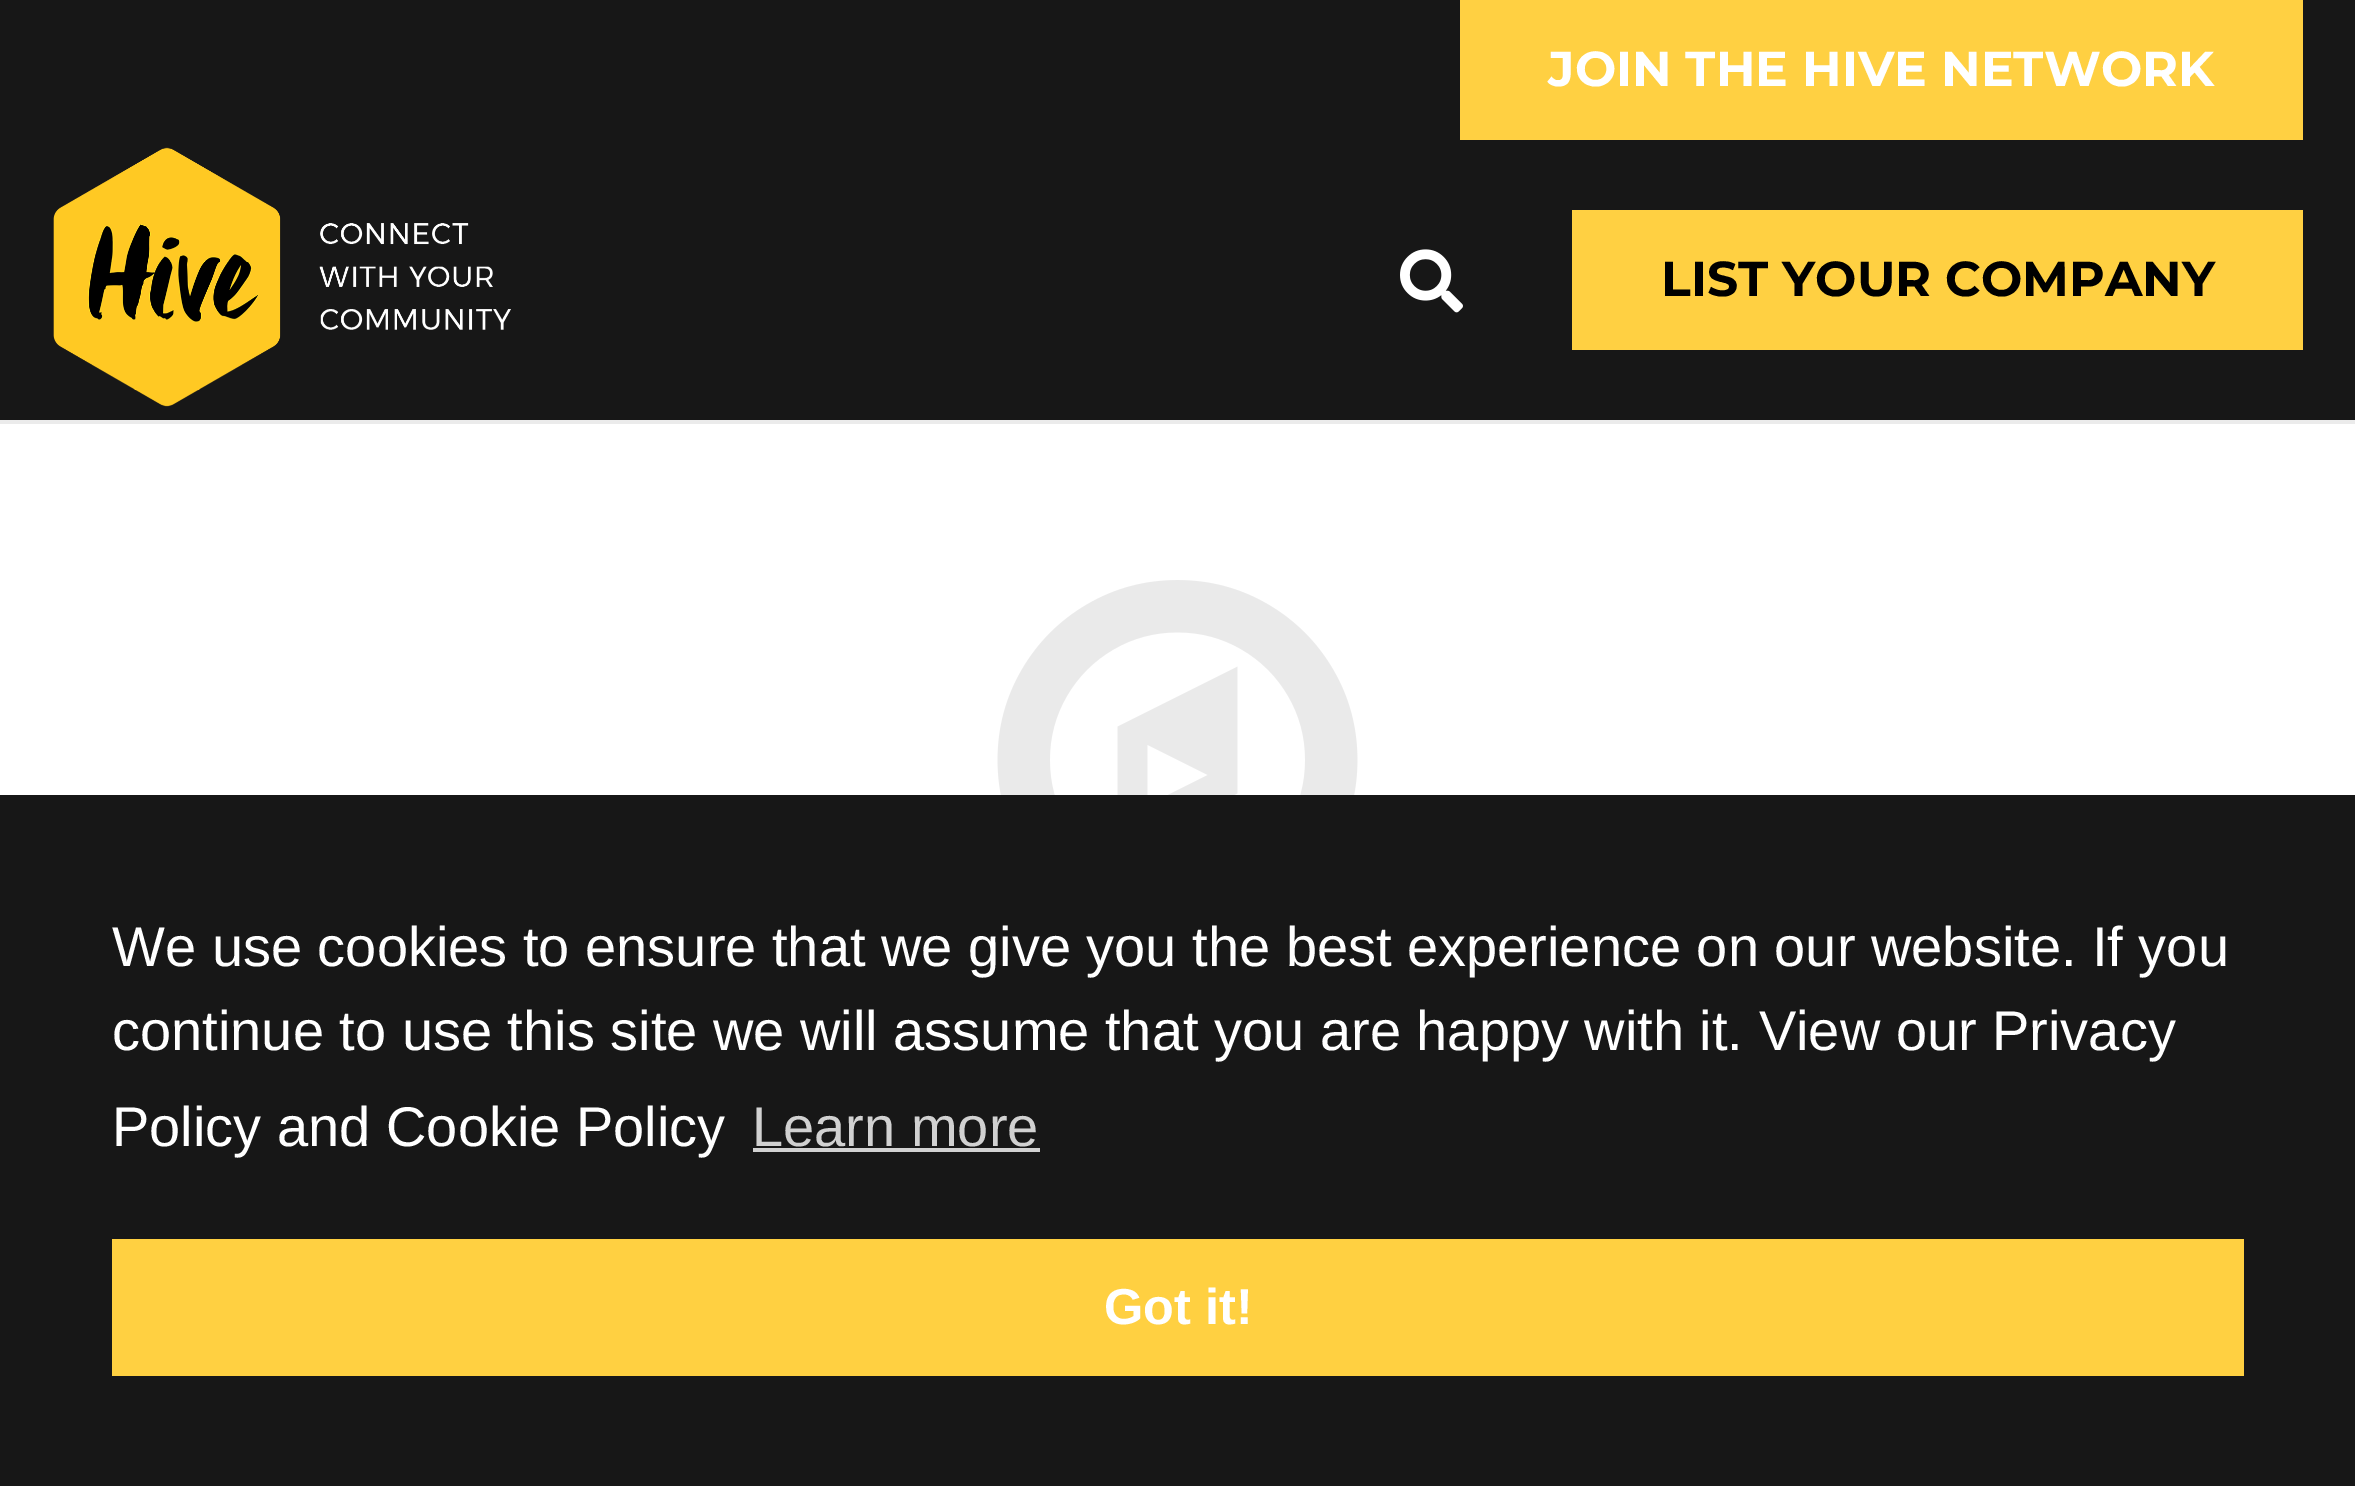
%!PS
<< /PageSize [2355 1486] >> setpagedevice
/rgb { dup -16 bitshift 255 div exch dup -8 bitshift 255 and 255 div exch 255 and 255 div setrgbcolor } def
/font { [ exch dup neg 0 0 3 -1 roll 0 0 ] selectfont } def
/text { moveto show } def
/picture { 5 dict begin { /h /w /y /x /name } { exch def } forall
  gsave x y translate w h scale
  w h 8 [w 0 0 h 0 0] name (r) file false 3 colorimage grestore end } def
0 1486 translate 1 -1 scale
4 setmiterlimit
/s1 { /Montserrat-Bold 49 font 16#FFFFFF rgb } def
/s2 { /Montserrat-Bold 49 font 16#000000 rgb } def
/s3 { /LiberationSans-Regular 56 font 16#FFFFFF rgb } def
/s4 { /LiberationSans-Regular 56 font 16#D1D1D1 rgb } def
/s5 { /LiberationSans-Bold 50.5 font 16#FFFFFF rgb } def
16#FFFFFF rgb
0 0 2355 1486 rectfill
16#171717 rgb
0 0 2355 420 rectfill
16#FFD042 rgb
1460 0 843 140 rectfill
s1
(JOIN THE HIVE NETWORK) 1548 86 text
16#EBEBEB rgb
0 420 moveto 0 424 lineto 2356 424 lineto 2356 144 lineto 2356 420 lineto closepath fill
(pic1.raw) 53 147 458 260 picture
(pic2.raw) 1400 249 63 64 picture
16#FFD042 rgb
1572 210 731 140 rectfill
s2
(LIST YOUR COMPANY) 1661 296 text
(pic3.raw) 997 580 361 215 picture
16#171717 rgb
0 795 2355 691 rectfill
s3
(We use cookies to ensure that we give you the best experience on our website. If you) 112 966 text
(continue to use this site we will assume that you are happy with it. View our Privacy) 112 1050 text
(Policy and Cookie Policy) 112 1146 text
s4
(Learn more) 752 1146 text
753 1148 287 4 rectfill
16#FFD041 rgb
112 1239 2132 137 rectfill
s5
(Got it!) 1104 1324 text
showpage
